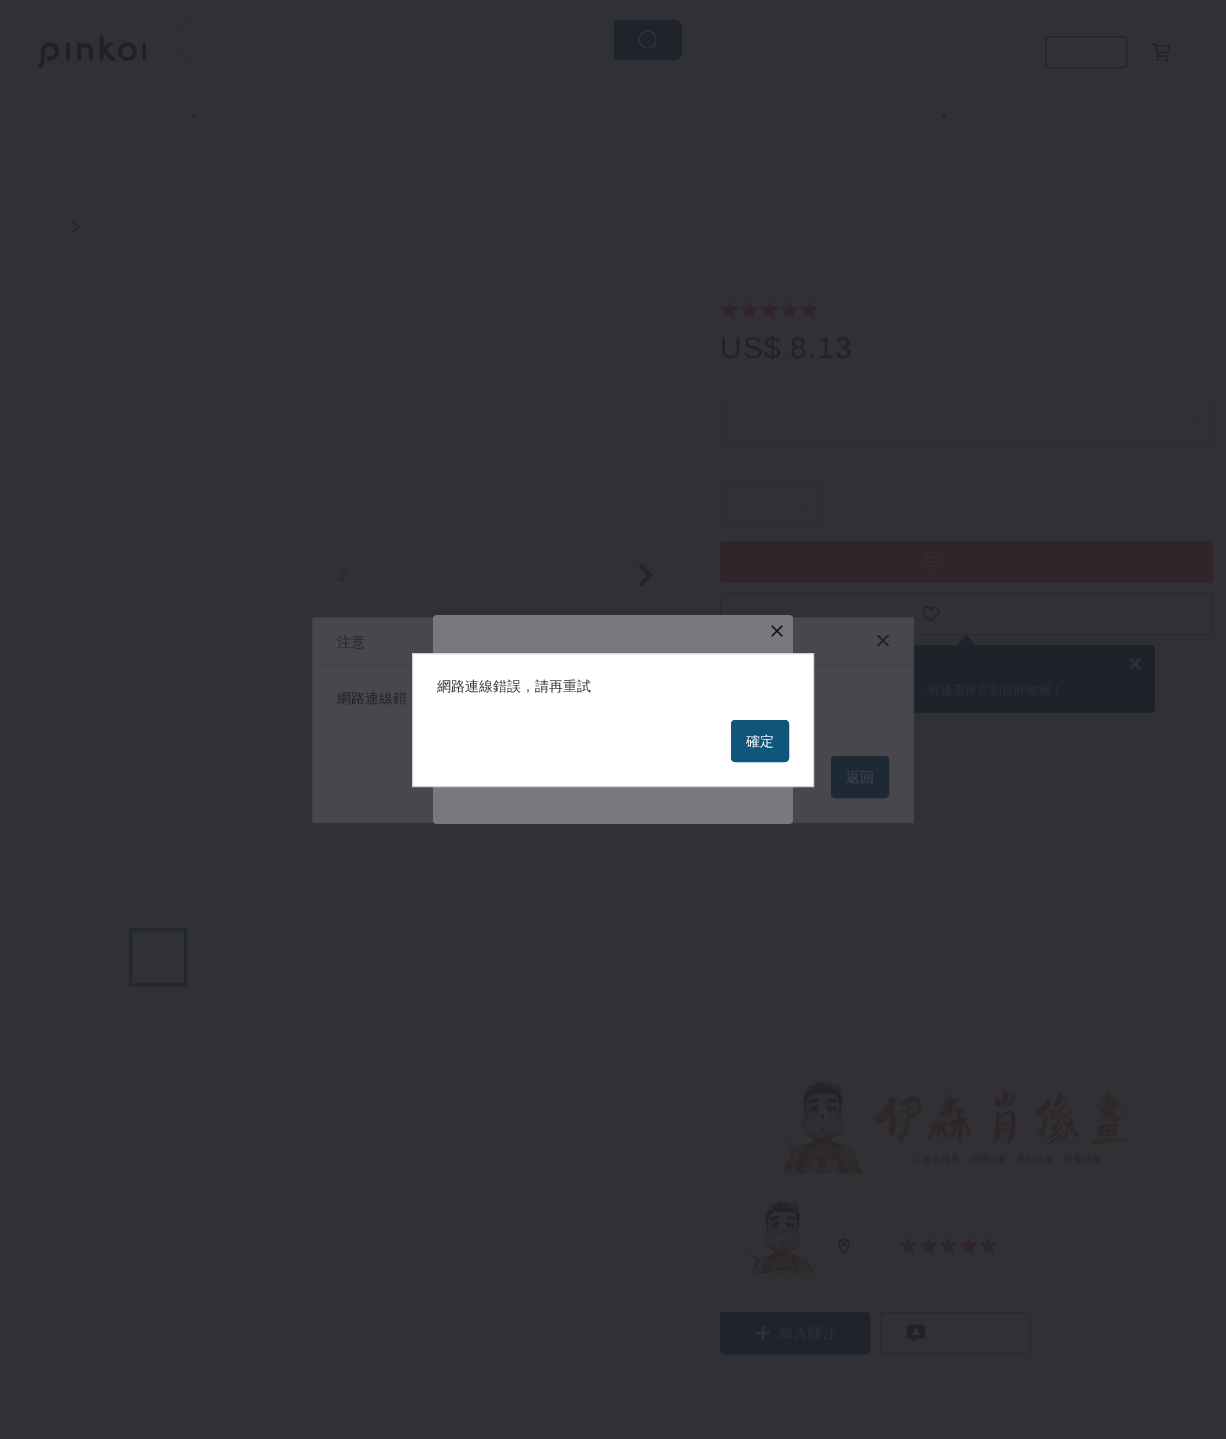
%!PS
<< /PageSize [1226 1439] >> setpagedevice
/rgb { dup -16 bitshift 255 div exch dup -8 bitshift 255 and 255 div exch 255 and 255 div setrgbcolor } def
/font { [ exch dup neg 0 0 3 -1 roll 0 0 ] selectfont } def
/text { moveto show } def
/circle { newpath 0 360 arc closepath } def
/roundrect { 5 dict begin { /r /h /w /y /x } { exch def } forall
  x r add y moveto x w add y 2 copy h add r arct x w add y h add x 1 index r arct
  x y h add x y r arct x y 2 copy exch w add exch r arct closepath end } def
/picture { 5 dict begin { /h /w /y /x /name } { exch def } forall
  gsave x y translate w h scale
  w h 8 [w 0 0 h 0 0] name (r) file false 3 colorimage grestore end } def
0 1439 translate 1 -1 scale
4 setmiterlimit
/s1 { /WenQuanYiZenHei-Medium 14 font 16#26262C rgb } def
/s2 { /WenQuanYiZenHei-Medium 14 font 16#1F242C rgb } def
/s3 { /WenQuanYiZenHei-Medium 14 font 16#47474C rgb } def
/s4 { /WenQuanYiZenHei-Medium 14 font 16#39393E rgb } def
/s5 { /WenQuanYiZenHei-Medium 14 font 16#FFFFFF rgb } def
16#303035 rgb
0 0 1226 1439 rectfill
(pic1.raw) 37 36 109 32 picture
16#2D2D32 rgb
190 20 moveto 614 20 lineto 614 60 lineto 190 60 lineto 186 60 182 56 182 52 curveto 182 28 lineto 182 24 186 20 190 20 curveto closepath 190 21 moveto 614 21 lineto 614 59 lineto 190 59 lineto 181 59 183 46 183 40 curveto 183 34 181 21 190 21 curveto closepath eofill
16#1F242C rgb
614 20 moveto 674 20 lineto 678.5 20 682 23.5 682 28 curveto 682 52 lineto 682 56.5 678.5 60 674 60 curveto 614 60 lineto closepath fill
(pic2.raw) 638 30 20 20 picture
16#222228 rgb
1045.5 36.5 81 31 2.5 roundrect stroke
(pic3.raw) 1151 43 20 19 picture
16#2D2D32 rgb
0 145 1226 1 rectfill
16#2F252A rgb
194 116 2 circle fill
944 116 2 circle fill
16#2A2A2F rgb
720.5 593.5 492 41 3.5 roundrect stroke
16#1E222A rgb
780 645 375 68 4 roundrect fill
16#47474C rgb
312.5 617.5 moveto 913.5 617.5 lineto 913.5 822.5 lineto 312.5 822.5 lineto closepath gsave fill grestore
16#404045 rgb
stroke
313 665 600 1 rectfill
16#79797D rgb
433 615 360 209 4 roundrect fill
(pic4.raw) 771 625 12 12 picture
(pic5.raw) 71 220 9 13 picture
(pic6.raw) 336 567 10 14 picture
16#24242A rgb
641.5 586.5 moveto 638.5 583.5 lineto 647 575 lineto 638.5 566.5 lineto 641.5 563.5 lineto 653 575 lineto closepath eofill
16#212830 rgb
3 setlinewidth
130.5 929.5 55 55 rectstroke
16#2D2D32 rgb
13 1070 650 1 rectfill
914 748 299 1 rectfill
(pic7.raw) 721 301 17 17 picture
(pic7.raw) 741 301 17 17 picture
(pic7.raw) 761 301 17 17 picture
(pic7.raw) 781 301 17 17 picture
(pic7.raw) 801 301 17 17 picture
/LiberationSans-Regular 30 font
16#1F242C rgb
720 358 moveto 1 0 (US$) ashow
790 358 moveto 1 0 (8.13) ashow
16#2D2D32 rgb
1 setlinewidth
720.5 399.5 494 41 rectstroke
1190 417 moveto 1200 417 lineto 1195 423 lineto closepath eofill
720.5 485.5 101 41 rectstroke
797 503 moveto 807 503 lineto 802 509 lineto closepath eofill
16#2F252A rgb
720 541 493 42 4 roundrect fill
(pic8.raw) 923 554 16 16 picture
(pic9.raw) 922 606 18 16 picture
16#1E222A rgb
975.5 645 moveto 957.5 645 lineto 966.5 635 lineto closepath fill
16#303035 rgb
1131 658 moveto 1140.5 668 lineto 1139 669.5 lineto 1129.5 659.5 lineto closepath fill
1129.5 668 moveto 1139 658 lineto 1140.5 659.5 lineto 1131 669.5 lineto closepath fill
/WenQuanYiZenHei-Medium 12 font
916 694 moveto 0.25 0 (，有優惠會立刻提醒你喔！) ashow
16#2D2D32 rgb
720 1014 493 1 rectfill
(pic10.raw) 781 1080 347 93 picture
(pic11.raw) 749 1200 66 73 picture
(pic12.raw) 838 1238 12 17 picture
(pic7.raw) 900 1237 17 17 picture
(pic7.raw) 920 1237 17 17 picture
(pic7.raw) 940 1237 17 17 picture
(pic7.raw) 960 1237 17 17 picture
(pic7.raw) 980 1237 17 17 picture
16#1F242C rgb
720.5 1312.5 149 41 3.5 roundrect gsave fill grestore
stroke
(pic13.raw) 756 1326 14 14 picture
/WenQuanYiZenHei-Medium 14 font
16#303035 rgb
779 1338 moveto 0.5 0 (加入關注) ashow
16#2A2A2F rgb
880.5 1312.5 149 41 3.5 roundrect stroke
(pic14.raw) 907 1324 18 18 picture
s1
(注意) 337 647 text
(pic15.raw) 877 635 12 11 picture
s2
(網路連線錯) 337 703 text
16#1D2A35 rgb
831.5 756.5 57 41 3.5 roundrect gsave fill grestore
stroke
s3
(返回) 846 782 text
16#FFFFFF rgb
412.5 653.5 moveto 813.5 653.5 lineto 813.5 786.5 lineto 412.5 786.5 lineto closepath gsave fill grestore
16#D3D3D5 rgb
stroke
s4
(網路連線錯誤，請再重試) 437 691 text
16#10567B rgb
731.5 720.5 57 41 3.5 roundrect gsave fill grestore
stroke
s5
(確定) 746 746 text
showpage
